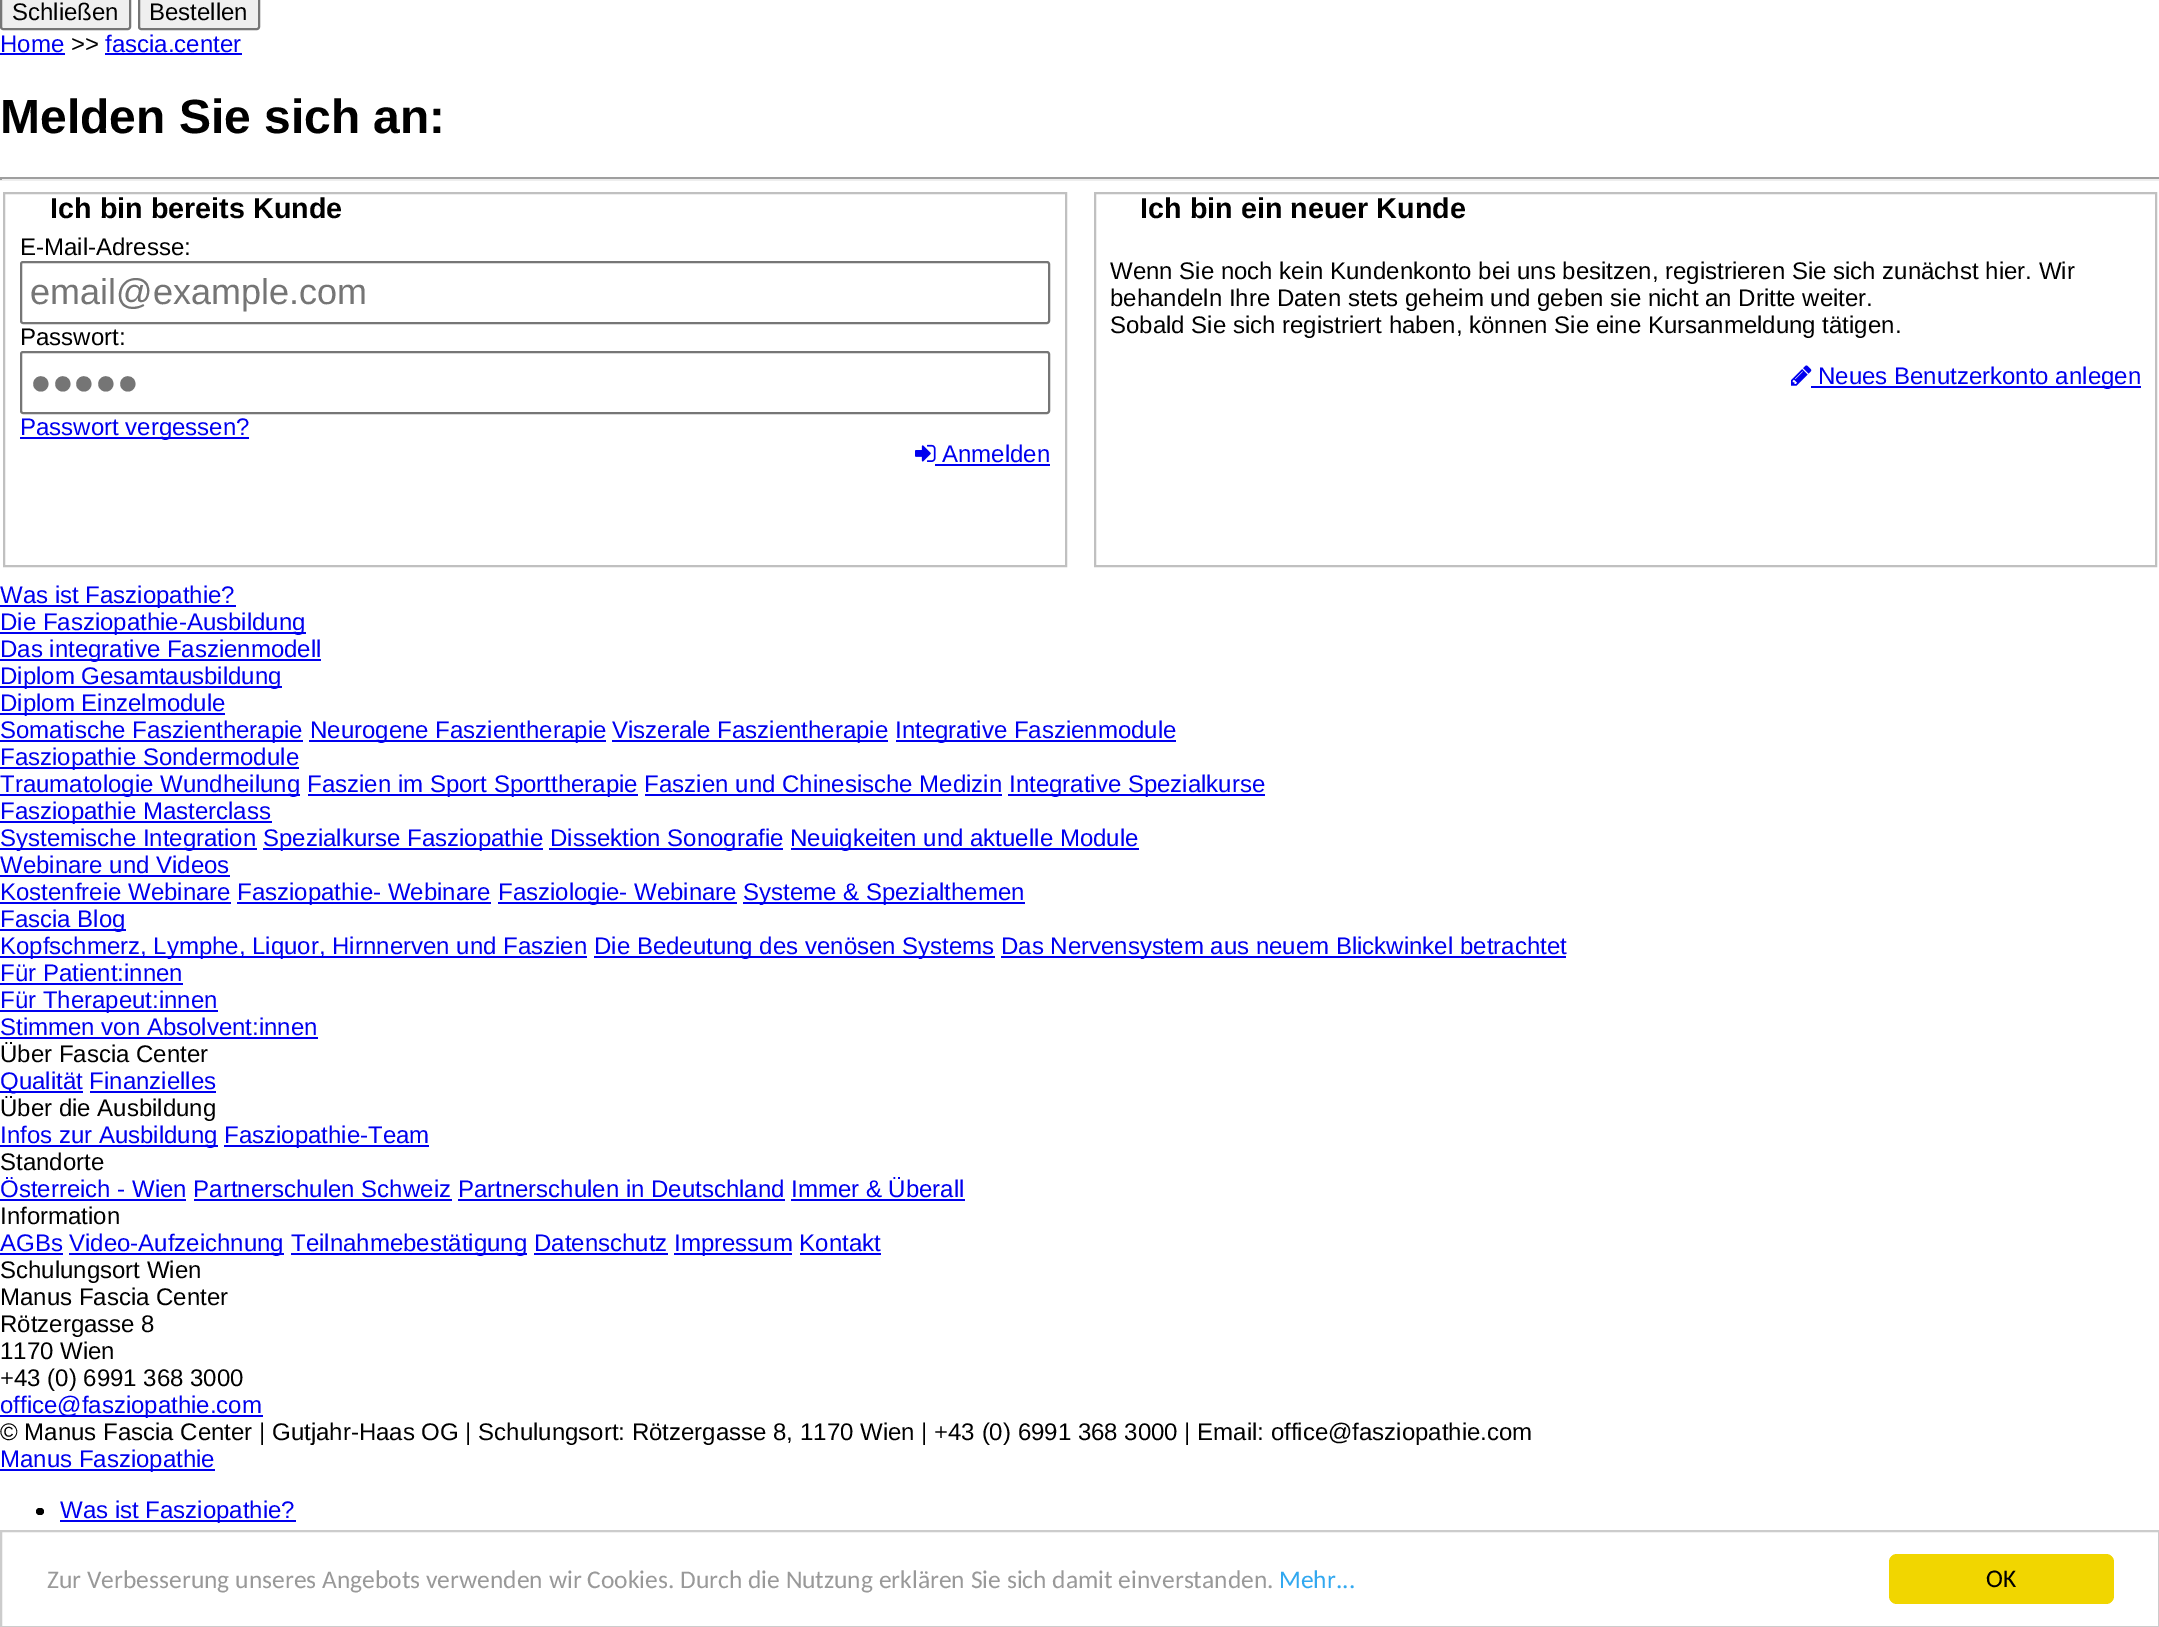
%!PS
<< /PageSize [2159 1627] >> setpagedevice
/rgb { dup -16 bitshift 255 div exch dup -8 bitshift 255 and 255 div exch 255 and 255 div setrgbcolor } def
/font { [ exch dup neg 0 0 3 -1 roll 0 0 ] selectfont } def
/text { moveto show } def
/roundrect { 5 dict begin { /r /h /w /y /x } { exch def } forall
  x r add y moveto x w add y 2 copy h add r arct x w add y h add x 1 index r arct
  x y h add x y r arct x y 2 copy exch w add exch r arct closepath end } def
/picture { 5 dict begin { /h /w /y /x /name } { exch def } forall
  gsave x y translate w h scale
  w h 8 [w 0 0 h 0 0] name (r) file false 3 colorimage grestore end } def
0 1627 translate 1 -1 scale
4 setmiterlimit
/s1 { /LiberationSans-Regular 24 font 16#000000 rgb } def
/s2 { /LiberationSans-Regular 24 font 16#0000EE rgb } def
/s3 { /LiberationSans-Bold 48 font 16#000000 rgb } def
/s4 { /LiberationSans-Bold 28.75 font 16#000000 rgb } def
/s5 { /LiberationSans-Regular 36 font 16#757575 rgb } def
/s6 { /Carlito-Regular 25.5 font 16#999999 rgb } def
/s7 { /Carlito-Regular 25.5 font 16#31A8F0 rgb } def
/s8 { /Carlito-Regular 25.5 font 16#000000 rgb } def
16#FFFFFF rgb
0 0 2159 1627 rectfill
16#EFEFEF rgb
1 -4 129 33 2 roundrect gsave fill grestore
16#767676 rgb
2 setlinewidth
stroke
s1
(Schließen) 12 20 text
16#EFEFEF rgb
139 -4 120 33 2 roundrect gsave fill grestore
16#767676 rgb
stroke
s1
(Bestellen) 149 20 text
s2
(Home) 0 52 text
0 53 65 2 rectfill
s1
(>>) 71 52 text
s2
(fascia.center) 105 52 text
105 53 137 2 rectfill
s3
(Melden Sie sich an:) 0 133 text
16#9F9F9F rgb
0 177 2159 2 rectfill
16#EEEEEE rgb
0 179 2159 2 rectfill
16#9F9F9F rgb
0 177 2 3 rectfill
16#C0C0C0 rgb
4 193 1062 373 rectstroke
s4
(Ich bin bereits Kunde) 50 218 text
s1
(E-Mail-Adresse:) 20 255 text
16#767676 rgb
21 262 1028 61 2 roundrect stroke
s5
(email@example.com) 30 304 text
s1
(Passwort:) 20 345 text
16#767676 rgb
21 352 1028 61 2 roundrect stroke
s5
(●●●●●) 30 394 text
16#0000EE rgb
20 437 229 2 rectfill
s2
(Passwort vergessen?) 20 435 text
(pic1.raw) 915 444 21 18 picture
(Anmelden) 942 462 text
935 464 115 2 rectfill
16#C0C0C0 rgb
1095 193 1061 373 rectstroke
s4
(Ich bin ein neuer Kunde) 1140 218 text
s1
(Wenn Sie noch kein Kundenkonto bei uns besitzen, registrieren Sie sich zunächst hier. Wir) 1110 279 text
(behandeln Ihre Daten stets geheim und geben sie nicht an Dritte weiter.) 1110 306 text
(Sobald Sie sich registriert haben, können Sie eine Kursanmeldung tätigen.) 1110 333 text
(pic2.raw) 1791 365 21 21 picture
16#0000EE rgb
1811 386 330 2 rectfill
(Neues Benutzerkonto anlegen) 1818 384 text
0 605 236 2 rectfill
(Was ist Fasziopathie?) 0 603 text
0 632 306 2 rectfill
(Die Fasziopathie-Ausbildung) 0 630 text
0 659 321 2 rectfill
(Das integrative Faszienmodell) 0 657 text
0 686 282 2 rectfill
(Diplom Gesamtausbildung) 0 684 text
0 713 225 2 rectfill
(Diplom Einzelmodule) 0 711 text
0 740 303 2 rectfill
(Somatische Faszientherapie) 0 738 text
309 740 297 2 rectfill
(Neurogene Faszientherapie) 310 738 text
612 740 276 2 rectfill
(Viszerale Faszientherapie) 612 738 text
896 740 280 2 rectfill
(Integrative Faszienmodule) 895 738 text
0 767 299 2 rectfill
(Fasziopathie Sondermodule) 0 765 text
0 794 300 2 rectfill
(Traumatologie Wundheilung) 0 792 text
308 794 330 2 rectfill
(Faszien im Sport Sporttherapie Faszien und Chinesische Medizin) 307 792 text
1008 794 257 2 rectfill
(Integrative Spezialkurse) 1009 792 text
645 794 357 2 rectfill
0 821 272 2 rectfill
(Fasziopathie Masterclass) 0 819 text
0 848 257 2 rectfill
(Systemische Integration) 0 846 text
263 848 280 2 rectfill
(Spezialkurse Fasziopathie) 263 846 text
549 848 234 2 rectfill
(Dissektion Sonografie) 550 846 text
791 848 348 2 rectfill
(Neuigkeiten und aktuelle Module) 790 846 text
(Webinare und Videos) 0 873 text
0 875 230 2 rectfill
(Kostenfreie Webinare) 0 900 text
0 902 231 2 rectfill
237 902 254 2 rectfill
(Fasziopathie- Webinare) 237 900 text
498 902 239 2 rectfill
(Fasziologie- Webinare) 498 900 text
743 902 282 2 rectfill
(Systeme & Spezialthemen) 743 900 text
0 929 126 2 rectfill
(Fascia Blog) 0 927 text
0 956 587 2 rectfill
(Kopfschmerz, Lymphe, Liquor, Hirnnerven und Faszien) 0 954 text
594 956 401 2 rectfill
(Die Bedeutung des venösen Systems) 594 954 text
1001 956 565 2 rectfill
(Das Nervensystem aus neuem Blickwinkel betrachtet) 1001 954 text
(Für Patient:innen) 0 981 text
0 983 183 2 rectfill
0 1010 218 2 rectfill
(Für Therapeut:innen) 0 1008 text
(Stimmen von Absolvent:innen) 0 1035 text
0 1037 318 2 rectfill
s1
(Über Fascia Center) 0 1062 text
16#0000EE rgb
0 1091 83 2 rectfill
(Qualität Finanzielles) 0 1089 text
90 1091 126 2 rectfill
s1
(Über die Ausbildung) 0 1116 text
16#0000EE rgb
0 1145 218 2 rectfill
(Infos zur Ausbildung) 0 1143 text
224 1145 205 2 rectfill
(Fasziopathie-Team) 224 1143 text
s1
(Standorte) 0 1170 text
s2
(Österreich - Wien Partnerschulen Schweiz Partnerschulen in Deutschland Immer & Überall) 0 1197 text
0 1199 186 2 rectfill
194 1199 258 2 rectfill
458 1199 327 2 rectfill
791 1199 174 2 rectfill
s1
(Information) 0 1224 text
s2
(AGBs) 0 1251 text
0 1253 63 2 rectfill
69 1253 215 2 rectfill
(Video-Aufzeichnung) 69 1251 text
291 1253 236 2 rectfill
(Teilnahmebestätigung Datenschutz) 291 1251 text
674 1253 118 2 rectfill
(Impressum Kontakt) 674 1251 text
534 1253 134 2 rectfill
800 1253 81 2 rectfill
s1
(Schulungsort Wien) 0 1278 text
(Manus Fascia Center) 0 1305 text
(Rötzergasse 8) 0 1332 text
(1170 Wien) 0 1359 text
(+43 \(0\) 6991 368 3000) 0 1386 text
16#0000EE rgb
0 1415 263 2 rectfill
(office@fasziopathie.com) 0 1413 text
s1
(© Manus Fascia Center | Gutjahr-Haas OG | Schulungsort: Rötzergasse 8, 1170 Wien | +43 \(0\) 6991 368 3000 | Email: office@fasziopathie.com) 0 1440 text
16#0000EE rgb
0 1469 215 2 rectfill
(Manus Fasziopathie) 0 1467 text
16#000000 rgb
36 1508 8 7 3.5 roundrect fill
16#0000EE rgb
60 1520 236 2 rectfill
(Was ist Fasziopathie?) 60 1518 text
16#CCCCCC rgb
1 1531 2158 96 rectstroke
s6
(Zur Verbesserung unseres Angebots verwenden wir Cookies. Durch die Nutzung erklären Sie sich damit einverstanden.) 47 1588 text
s7
(Mehr...) 1279 1588 text
16#F1D600 rgb
1889 1554 225 50 8 roundrect fill
s8
(OK) 1986 1587 text
showpage
